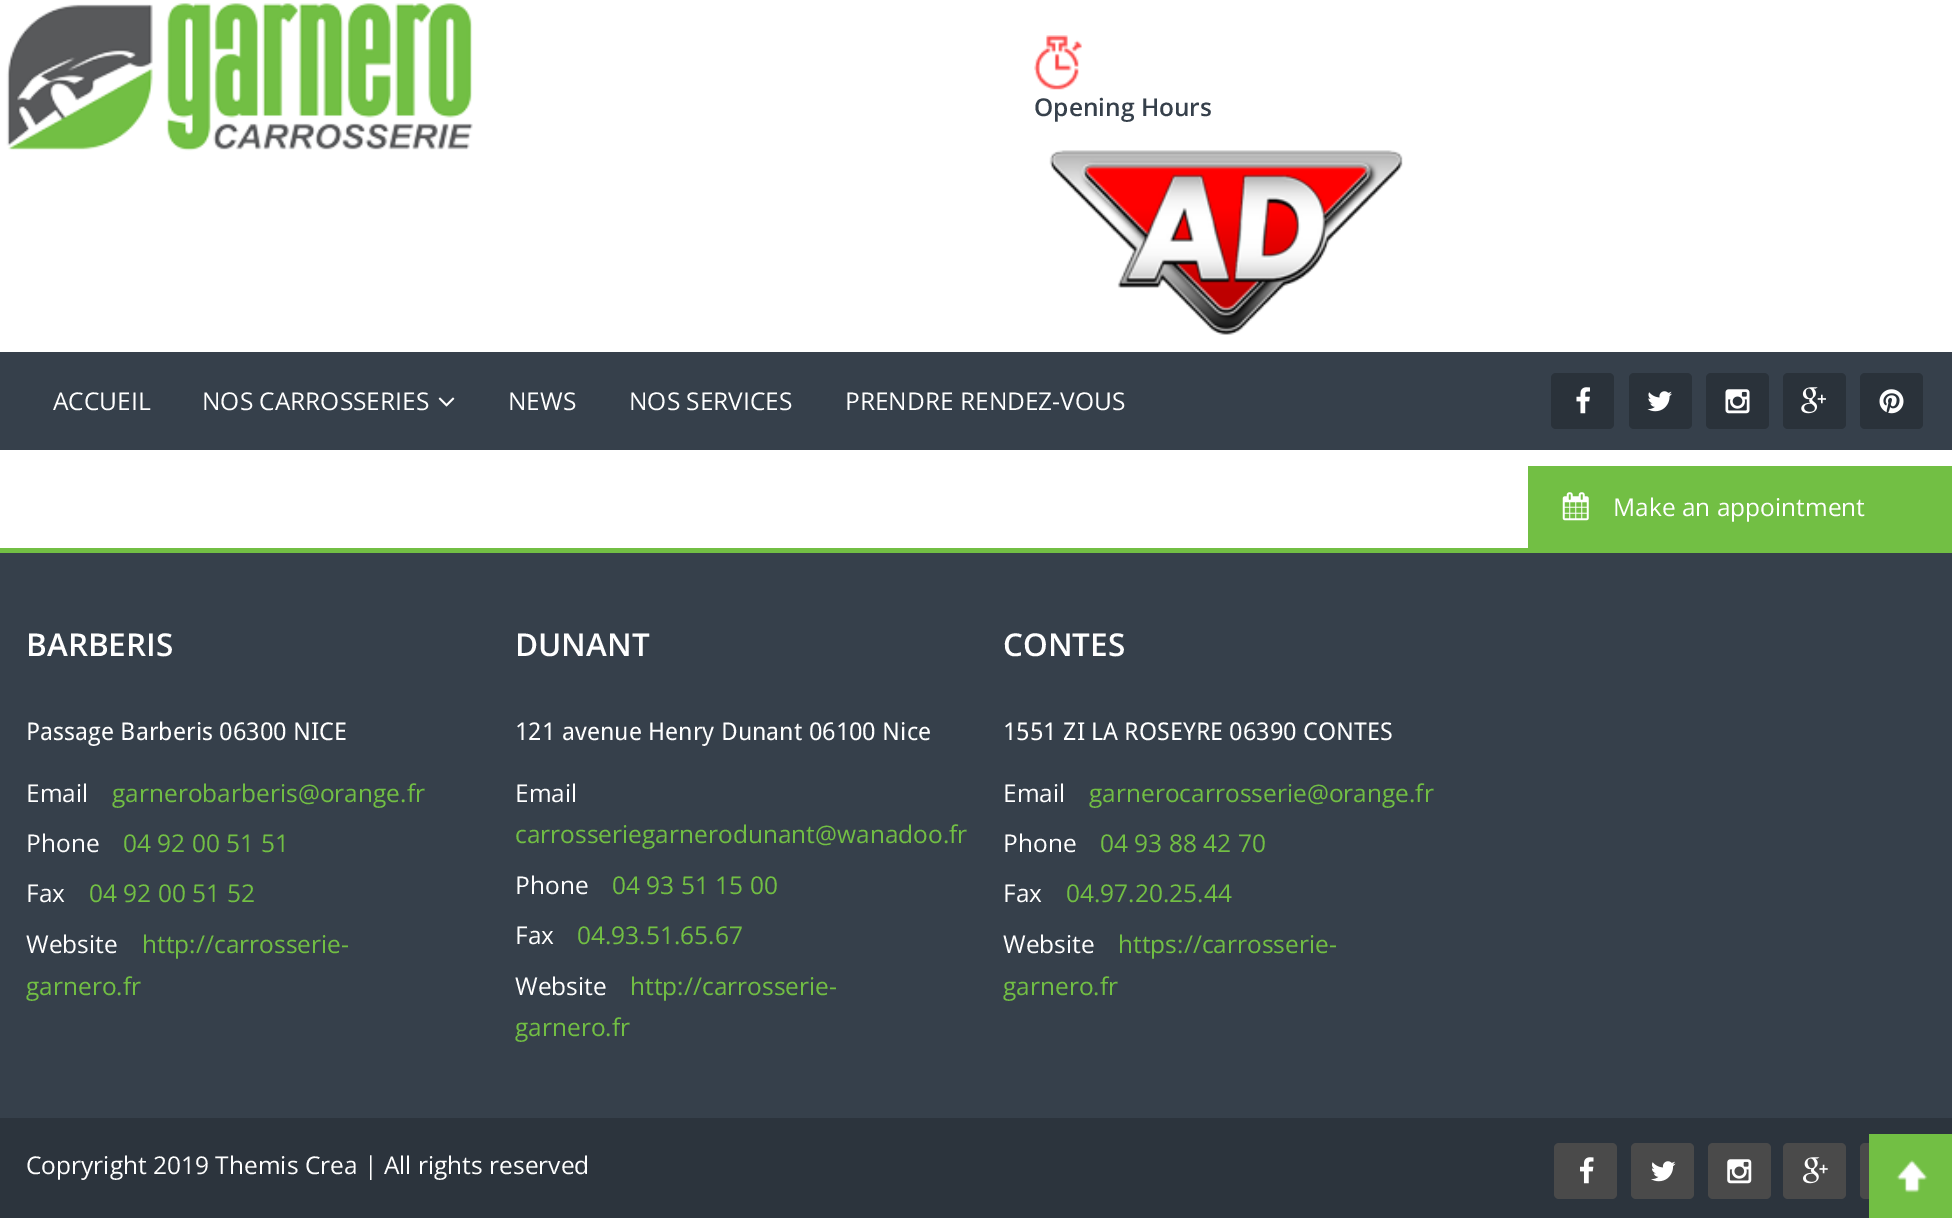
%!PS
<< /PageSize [1952 1218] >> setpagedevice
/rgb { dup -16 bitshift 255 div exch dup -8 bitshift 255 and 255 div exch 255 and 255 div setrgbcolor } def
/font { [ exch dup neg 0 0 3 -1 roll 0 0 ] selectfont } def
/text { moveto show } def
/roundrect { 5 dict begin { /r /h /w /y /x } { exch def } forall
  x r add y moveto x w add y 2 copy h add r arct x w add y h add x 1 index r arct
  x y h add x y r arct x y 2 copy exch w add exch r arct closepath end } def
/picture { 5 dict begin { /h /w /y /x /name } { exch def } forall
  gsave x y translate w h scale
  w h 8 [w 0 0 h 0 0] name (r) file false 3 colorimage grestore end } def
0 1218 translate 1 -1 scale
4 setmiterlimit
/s1 { /OpenSans-SemiBold 24.5 font 16#36404B rgb } def
/s2 { /OpenSans-Regular 24.5 font 16#FFFFFF rgb } def
/s3 { /OpenSans-SemiBold 31.5 font 16#FFFFFF rgb } def
/s4 { /DroidSans-Regular 24.5 font 16#FFFFFF rgb } def
/s5 { /OpenSans-Regular 24.5 font 16#72BF44 rgb } def
16#FFFFFF rgb
0 0 1952 1218 rectfill
(pic1.raw) 6 3 467 148 picture
(pic2.raw) 1034 35 48 55 picture
s1
(Opening Hours) 1034 116 text
(pic3.raw) 1049 150 354 185 picture
0 352 1952 98 rectfill
s2
(ACCUEIL) 53 410 text
(NOS CARROSSERIES) 202 410 text
(pic4.raw) 438 397 17 10 picture
(NEWS) 508 410 text
(NOS SERVICES) 629 410 text
(PRENDRE RENDEZ-VOUS) 845 410 text
16#2A323A rgb
1551 373 63 56 5 roundrect fill
(pic5.raw) 1576 387 14 27 picture
1629 373 63 56 5 roundrect fill
(pic6.raw) 1647 391 25 21 picture
1706 373 63 56 5 roundrect fill
(pic7.raw) 1725 389 25 25 picture
1783 373 63 56 5 roundrect fill
(pic8.raw) 1801 387 25 27 picture
1860 373 63 56 5 roundrect fill
(pic9.raw) 1879 389 25 25 picture
16#72BF44 rgb
0 548 1952 5 rectfill
1528 466 424 82 rectfill
(pic10.raw) 1562 492 27 29 picture
s2
(Make an appointment) 1613 516 text
16#36404B rgb
0 553 1952 565 rectfill
s3
(BARBERIS) 26 656 text
s4
(Passage Barberis 06300 NICE) 26 740 text
s2
(Email) 26 802 text
s5
(garnerobarberis@orange.fr) 112 802 text
s2
(Phone) 26 852 text
s5
(04 92 00 51 51) 123 852 text
s2
(Fax) 26 902 text
s5
(04 92 00 51 52) 89 902 text
s2
(Website) 26 953 text
s5
(http://carrosserie-) 142 953 text
(garnero.fr) 26 995 text
s3
(DUNANT) 515 656 text
s4
(121 avenue Henry Dunant 06100 Nice) 515 740 text
s2
(Email) 515 802 text
s5
(carrosseriegarnerodunant@wanadoo.fr) 515 843 text
s2
(Phone) 515 894 text
s5
(04 93 51 15 00) 612 894 text
s2
(Fax) 515 944 text
s5
(04.93.51.65.67) 577 944 text
s2
(Website) 515 995 text
s5
(http://carrosserie-) 630 995 text
(garnero.fr) 515 1036 text
s3
(CONTES) 1003 656 text
s4
(1551 ZI LA ROSEYRE 06390 CONTES) 1003 740 text
s2
(Email) 1003 802 text
s5
(garnerocarrosserie@orange.fr) 1089 802 text
s2
(Phone) 1003 852 text
s5
(04 93 88 42 70) 1100 852 text
s2
(Fax) 1003 902 text
s5
(04.97.20.25.44) 1066 902 text
s2
(Website) 1003 953 text
s5
(https://carrosserie-) 1118 953 text
(garnero.fr) 1003 995 text
16#2C343D rgb
0 1118 1952 100 rectfill
s2
(Copryright 2019 Themis Crea | All rights reserved) 26 1174 text
16#4A4A4A rgb
1554 1143 63 56 5 roundrect fill
(pic11.raw) 1580 1157 14 27 picture
1631 1143 63 56 5 roundrect fill
(pic12.raw) 1651 1161 25 21 picture
1708 1143 63 56 5 roundrect fill
(pic13.raw) 1727 1159 25 25 picture
1783 1143 63 56 5 roundrect fill
(pic14.raw) 1803 1157 25 27 picture
1860 1143 63 56 5 roundrect fill
16#72BF44 rgb
1869 1134 83 84 rectfill
(pic15.raw) 1896 1160 32 33 picture
showpage
